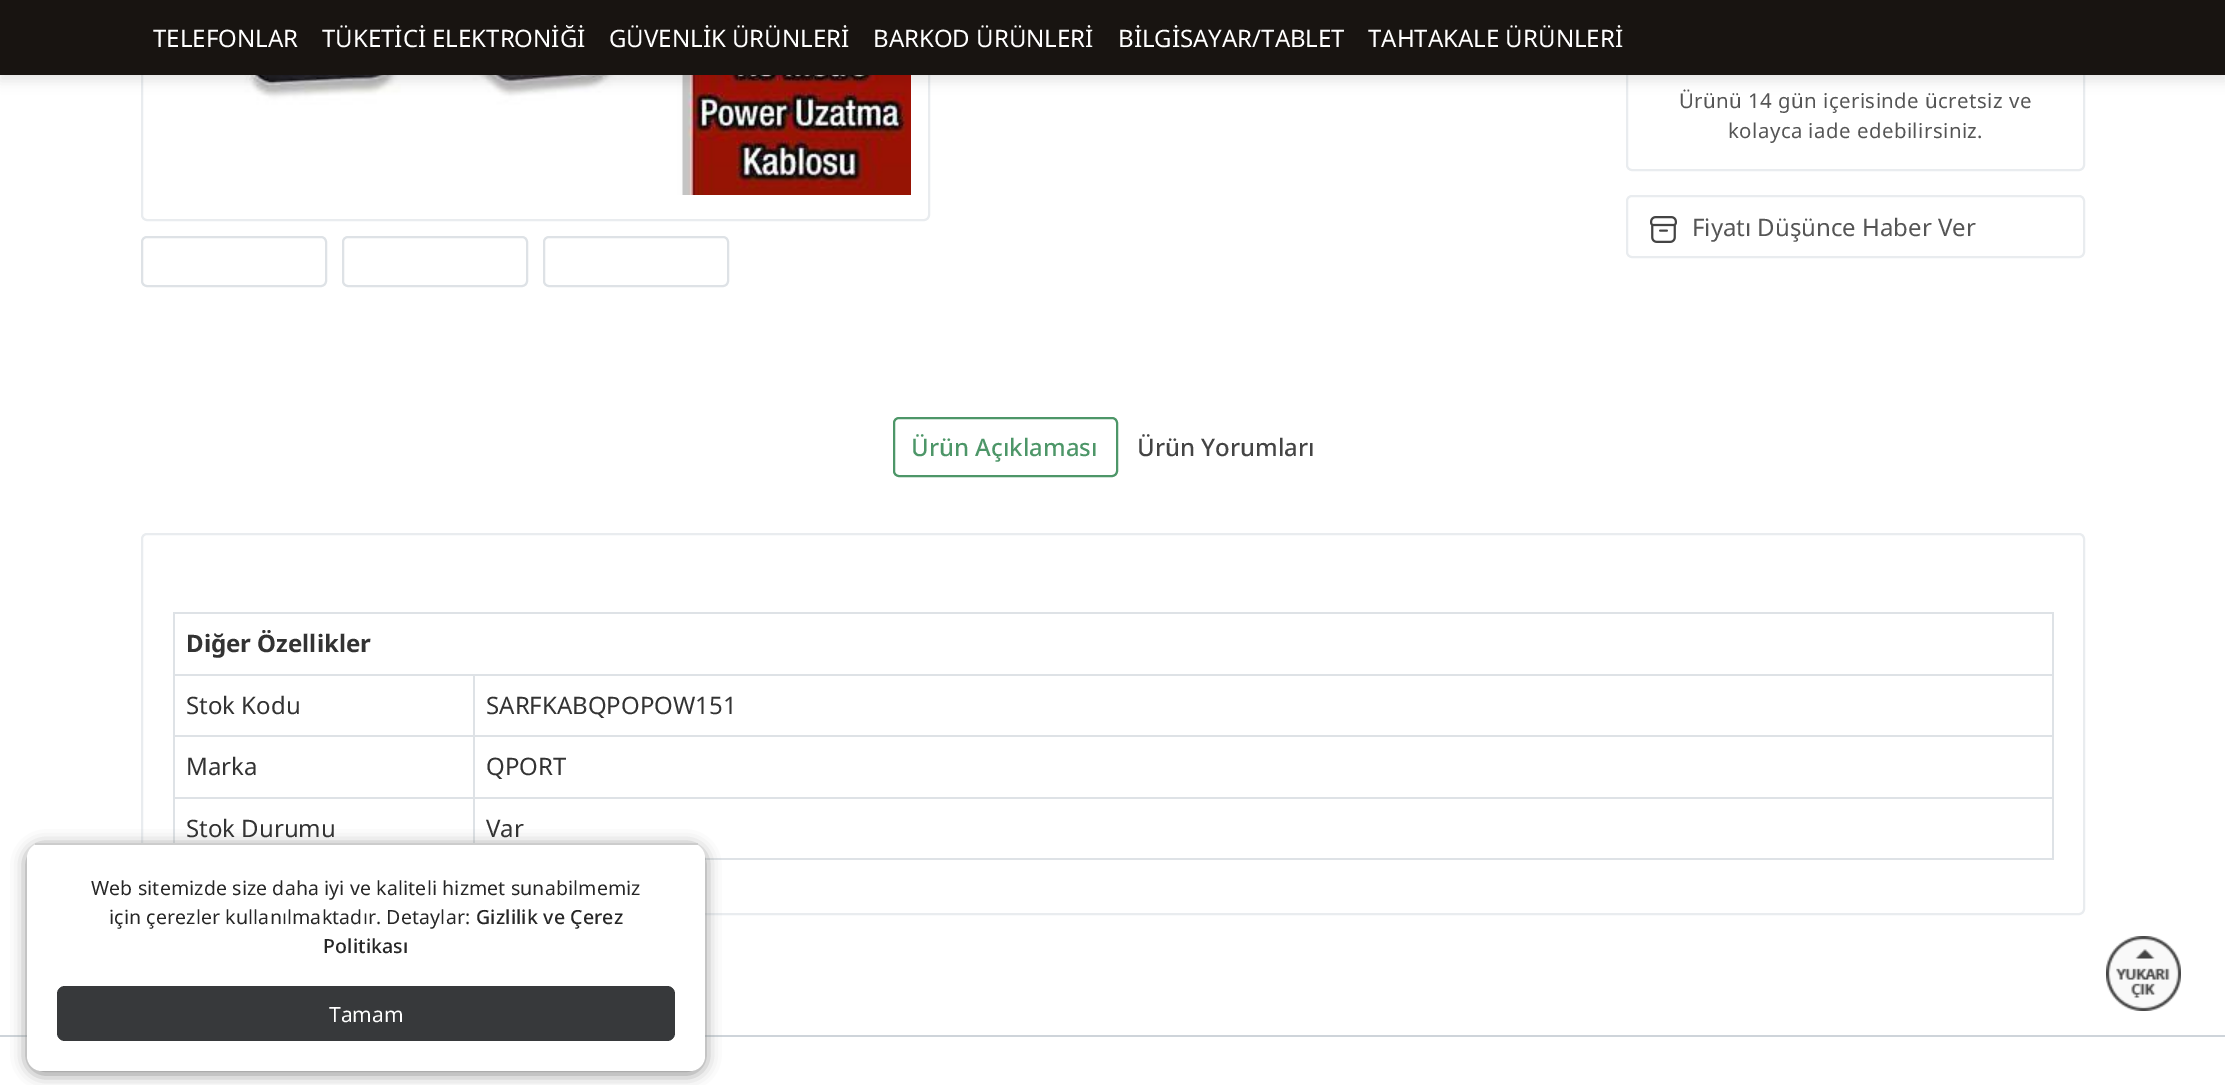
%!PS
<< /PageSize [2225 1085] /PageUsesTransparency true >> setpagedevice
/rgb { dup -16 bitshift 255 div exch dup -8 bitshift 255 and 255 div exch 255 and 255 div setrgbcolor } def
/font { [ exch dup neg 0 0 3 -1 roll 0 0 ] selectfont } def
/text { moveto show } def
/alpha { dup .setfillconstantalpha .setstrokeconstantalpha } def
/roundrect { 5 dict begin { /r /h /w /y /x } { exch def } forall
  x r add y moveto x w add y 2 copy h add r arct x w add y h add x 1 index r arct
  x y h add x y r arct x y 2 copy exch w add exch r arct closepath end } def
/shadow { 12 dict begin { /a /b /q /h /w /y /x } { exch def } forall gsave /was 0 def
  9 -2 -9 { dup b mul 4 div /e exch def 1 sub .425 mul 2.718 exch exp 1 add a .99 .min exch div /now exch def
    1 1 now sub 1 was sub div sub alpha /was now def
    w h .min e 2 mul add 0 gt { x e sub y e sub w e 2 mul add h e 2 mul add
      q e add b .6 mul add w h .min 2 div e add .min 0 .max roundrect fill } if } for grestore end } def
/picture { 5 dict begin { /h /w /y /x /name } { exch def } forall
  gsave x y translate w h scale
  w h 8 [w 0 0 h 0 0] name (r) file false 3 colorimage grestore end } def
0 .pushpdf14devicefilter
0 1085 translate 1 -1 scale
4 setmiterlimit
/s1 { /NotoSans-Regular 24 font 16#FFFFFF rgb } def
/s2 { /NotoSans-Regular 21 font 16#FFFFFF rgb } def
/s3 { /NotoSans-Regular 24 font 16#555555 rgb } def
/s4 { /NotoSans-Medium 24 font 16#4D9668 rgb } def
/s5 { /NotoSans-Medium 24 font 16#444444 rgb } def
/s6 { /NotoSans-Bold 24 font 16#333333 rgb } def
/s7 { /NotoSans-Regular 24 font 16#333333 rgb } def
16#FFFFFF rgb
0 0 2225 1085 rectfill
16#E9ECEF rgb
2 setlinewidth
142 -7 787 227 5 roundrect stroke
(pic2.raw) 230 75 681 120 picture
1627 -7 457 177 5 roundrect stroke
16#000000 rgb
0 6 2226 75 0 6 0.1 shadow
16#181411 rgb
0 0 2225 75 rectfill
s1
(TELEFONLAR) 153 47 text
(TÜKETİCİ ELEKTRONİĞİ) 322 47 text
(GÜVENLİK ÜRÜNLERİ) 609 47 text
(BARKOD ÜRÜNLERİ) 873 47 text
(BİLGİSAYAR/TABLET) 1118 47 text
(TAHTAKALE ÜRÜNLERİ) 1368 47 text
16#E9ECEF rgb
142 534 1942 380 5 roundrect stroke
16#DEE2E6 rgb
705 858 1349 2 rectfill
173 612 1881 2 rectfill
173 674 1881 2 rectfill
173 735 1881 2 rectfill
173 797 1881 2 rectfill
173 612 2 231 rectfill
473 674 2 169 rectfill
16#CED4DA rgb
0 1035 2225 2 rectfill
16#888888 rgb
27 846 678 228 15 7.5 1 shadow
16#FFFFFF rgb
27 843 678 228 15 roundrect fill
16#CCCCCC rgb
35 843 663 2 rectfill
/NotoSans-Regular 19.5 font
16#262626 rgb
91 895 moveto 0.15 0 (Web sitemizde size daha iyi ve kaliteli hizmet sunabilmemiz) ashow
109 924 moveto 0.15 0 (için çerezler kullanılmaktadır. Detaylar:) ashow
/NotoSans-Medium 19.5 font
476 924 moveto 0.15 0 (Gizlilik ve Çerez) ashow
323 953 moveto 0.15 0 (Politikası) ashow
16#37393B rgb
57 986 618 55 8 roundrect fill
s2
(Tamam) 329 1022 text
(pic1.raw) 2106 936 75 75 picture
16#DEE2E6 rgb
142 237 184 49 5 roundrect stroke
343 237 184 49 5 roundrect stroke
544 237 184 49 5 roundrect stroke
/NotoSans-Regular 20.4 font
16#555555 rgb
1679 108 moveto 0.45 0 (Ürünü 14 gün içerisinde ücretsiz ve) ashow
1728 138 moveto 0.45 0 (kolayca iade edebilirsiniz.) ashow
16#E9ECEF rgb
1627 196 457 61 5 roundrect stroke
(pic3.raw) 1650 216 27 27 picture
s3
(Fiyatı Düşünce Haber Ver) 1692 236 text
16#4D9668 rgb
894 418 223 58 5 roundrect stroke
s4
(Ürün Açıklaması) 911 456 text
s5
(Ürün Yorumları) 1137 456 text
s6
(Diğer Özellikler) 186 652 text
s7
(Stok Kodu) 186 714 text
(SARFKABQPOPOW151) 486 714 text
(Marka) 186 775 text
(QPORT) 486 775 text
(Stok Durumu) 186 837 text
16#DEE2E6 rgb
2052 612 2 248 rectfill
s7
(Var) 486 837 text
.poppdf14devicefilter showpage
